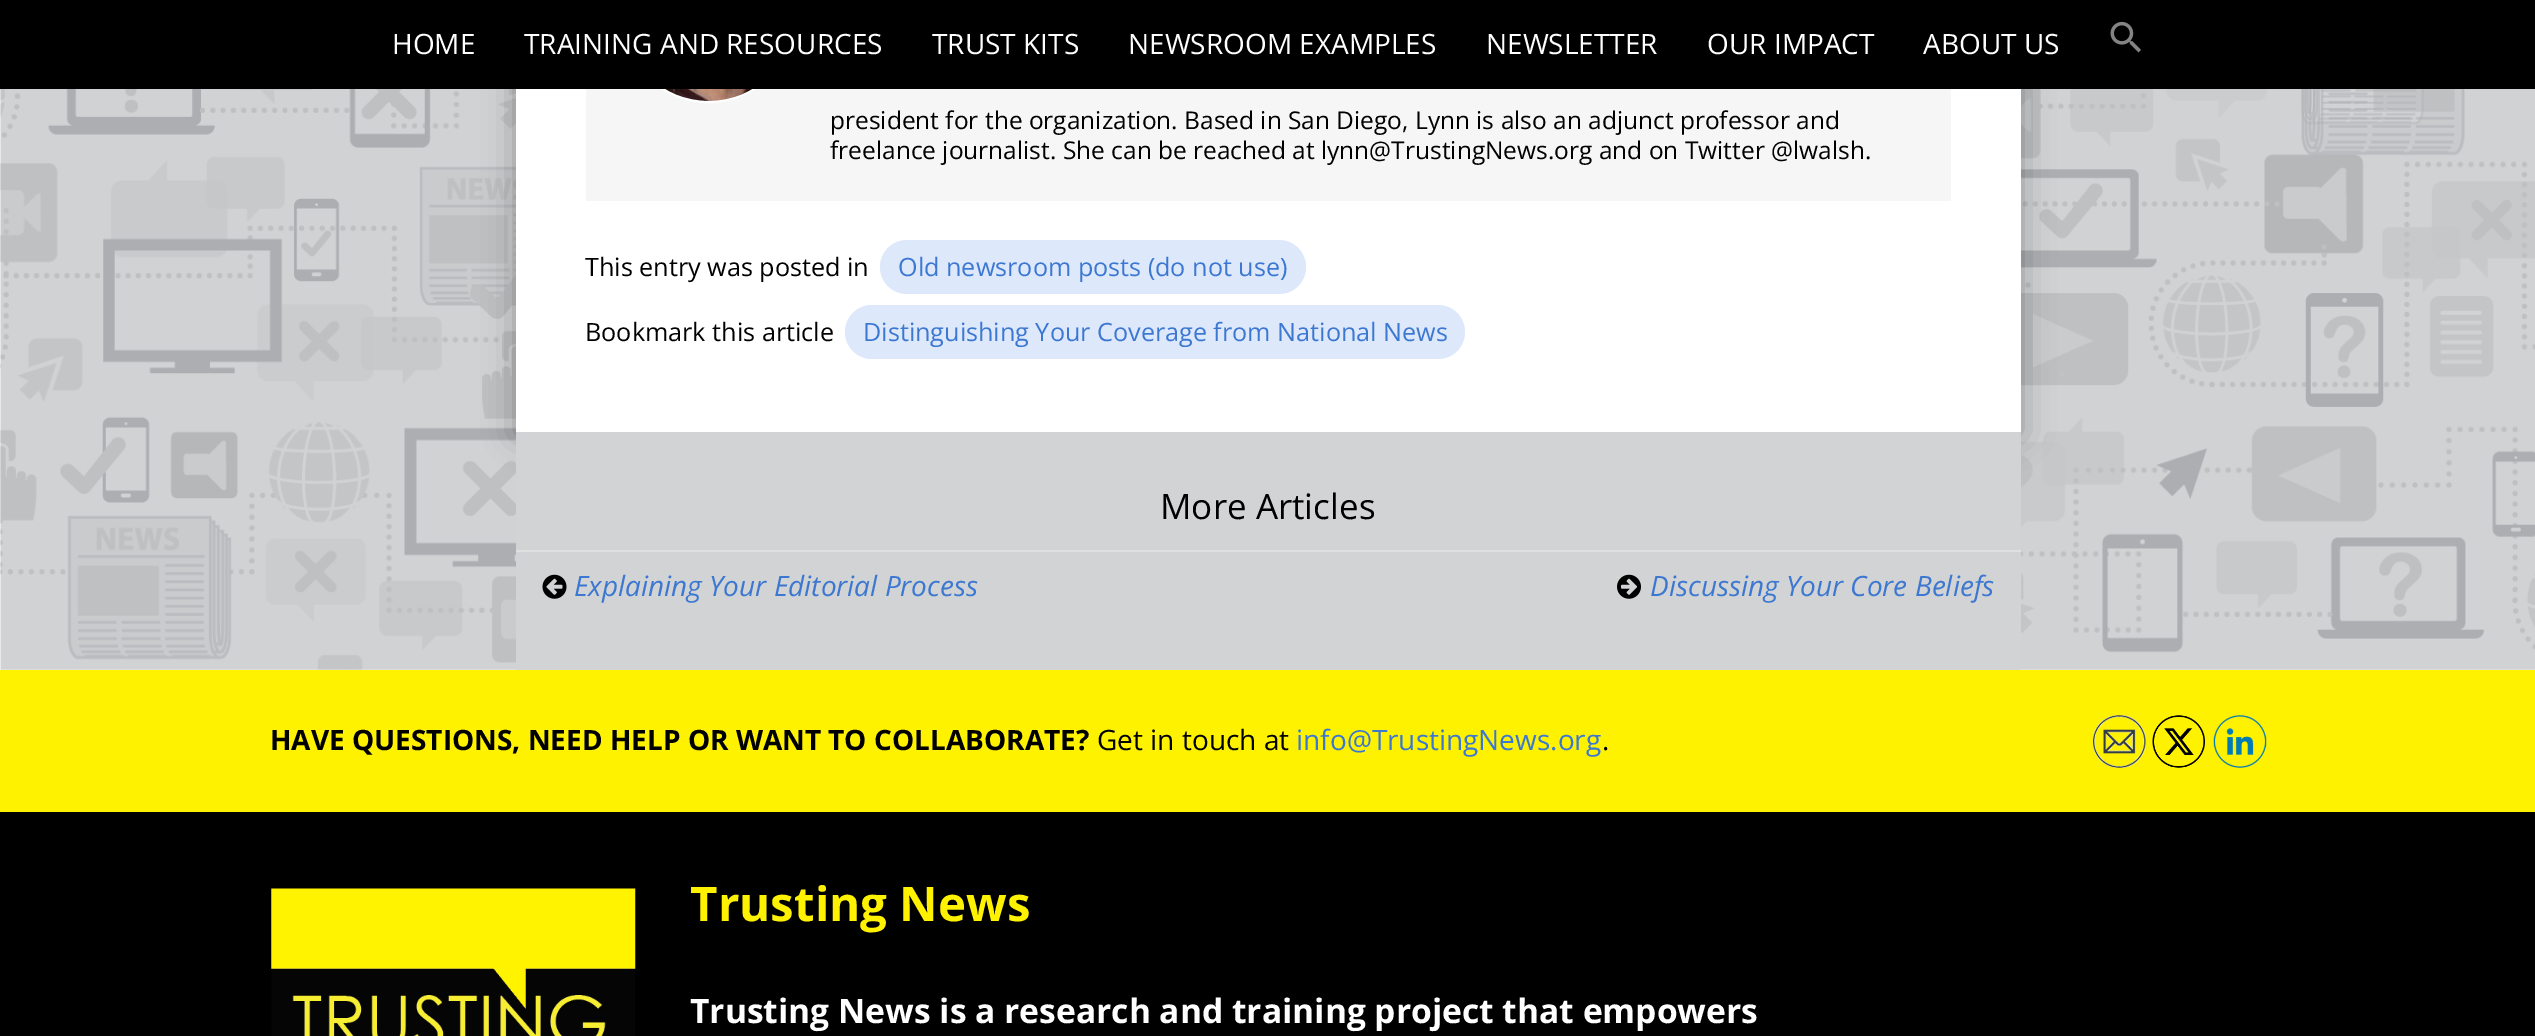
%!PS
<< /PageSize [2535 1036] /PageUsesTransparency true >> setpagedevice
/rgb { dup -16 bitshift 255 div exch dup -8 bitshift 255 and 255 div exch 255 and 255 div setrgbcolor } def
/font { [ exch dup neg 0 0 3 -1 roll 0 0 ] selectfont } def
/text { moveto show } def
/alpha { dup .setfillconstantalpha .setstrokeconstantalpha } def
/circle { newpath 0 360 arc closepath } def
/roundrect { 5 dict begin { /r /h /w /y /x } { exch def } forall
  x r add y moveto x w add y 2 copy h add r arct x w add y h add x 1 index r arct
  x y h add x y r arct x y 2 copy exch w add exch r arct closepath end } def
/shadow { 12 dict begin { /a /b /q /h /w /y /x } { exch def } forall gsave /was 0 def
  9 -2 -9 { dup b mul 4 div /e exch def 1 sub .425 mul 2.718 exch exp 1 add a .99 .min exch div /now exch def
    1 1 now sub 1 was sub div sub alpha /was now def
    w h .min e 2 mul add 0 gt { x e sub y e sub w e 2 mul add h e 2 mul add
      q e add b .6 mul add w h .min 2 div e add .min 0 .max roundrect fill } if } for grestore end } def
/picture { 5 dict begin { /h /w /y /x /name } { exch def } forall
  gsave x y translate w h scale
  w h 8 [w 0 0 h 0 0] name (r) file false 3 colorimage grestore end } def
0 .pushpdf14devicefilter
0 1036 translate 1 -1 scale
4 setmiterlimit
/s1 { /OpenSans-Regular 28 font 16#FFFFFF rgb } def
/s2 { /OpenSans-Regular 24.5 font 16#000000 rgb } def
/s3 { /OpenSans-Regular 25.2 font 16#000000 rgb } def
/s4 { /OpenSans-Regular 25.2 font 16#3C78D1 rgb } def
/s5 { /OpenSans-Regular 35 font 16#000000 rgb } def
/s6 { /OpenSans-Italic 28 font 16#3C78D1 rgb } def
/s7 { /OpenSans-Bold 28 font 16#000000 rgb } def
/s8 { /OpenSans-Regular 28 font 16#000000 rgb } def
/s9 { /OpenSans-Regular 28 font 16#3C78D1 rgb } def
/s10 { /OpenSans-Bold 47.5 font 16#FFF200 rgb } def
/s11 { /OpenSans-Bold 33.6 font 16#FFFFFF rgb } def
16#FFFFFF rgb
0 0 2535 1036 rectfill
(pic2.raw) 0 89 2535 581 picture
16#000000 rgb
516 -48 1505 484 0 16 0.3 shadow
16#FFFFFF rgb
516 89 1505 343 rectfill
16#F6F6F6 rgb
586 89 1365 112 rectfill
16#FFFFFF rgb
2 setlinewidth
708.5 15.5 86.5 circle stroke
16#000000 rgb
0 0 2535 89 rectfill
s1
(HOME) 392 54 text
(TRAINING AND RESOURCES) 524 54 text
(TRUST KITS) 932 54 text
(NEWSROOM EXAMPLES) 1128 54 text
(NEWSLETTER) 1486 54 text
(OUR IMPACT) 1707 54 text
(ABOUT US) 1923 54 text
(pic1.raw) 2110 21 31 32 picture
(pic3.raw) 665 89 87 12 picture
s2
(president for the organization. Based in San Diego, Lynn is also an adjunct professor and) 830 129 text
(freelance journalist. She can be reached at lynn@TrustingNews.org and on Twitter @lwalsh.) 830 159 text
s3
(This entry was posted in) 585 276 text
16#DDE8FB rgb
880 240 426 54 27 roundrect fill
s4
(Old newsroom posts \(do not use\)) 898 276 text
s3
(Bookmark this article) 585 341 text
16#DDE8FB rgb
845 305 620 54 27 roundrect fill
s4
(Distinguishing Your Coverage from National News) 863 341 text
16#D1D3D4 rgb
516 432 1505 133 rectfill
16#E0E0E0 rgb
516 550 1505 2 rectfill
s5
(More Articles) 1160 519 text
16#D1D3D4 rgb
516 565 1505 105 rectfill
(pic4.raw) 542 574 25 25 picture
s6
(Explaining Your Editorial Process) 574 596 text
(pic5.raw) 1617 574 24 25 picture
(Discussing Your Core Beliefs) 1650 596 text
16#FFF200 rgb
0 670 2535 142 rectfill
s7
(HAVE QUESTIONS, NEED HELP OR WANT TO COLLABORATE?) 270 750 text
s8
(Get in touch at) 1097 750 text
s9
(info@TrustingNews.org) 1296 750 text
s8
(.) 1602 750 text
(pic6.raw) 2093 715 53 53 picture
(pic7.raw) 2152 715 53 53 picture
(pic8.raw) 2213 715 54 53 picture
0 812 2535 224 rectfill
(pic9.raw) 271 888 365 148 picture
s10
(Trusting News) 690 921 text
s11
(Trusting News is a research and training project that empowers) 690 1023 text
.poppdf14devicefilter showpage
